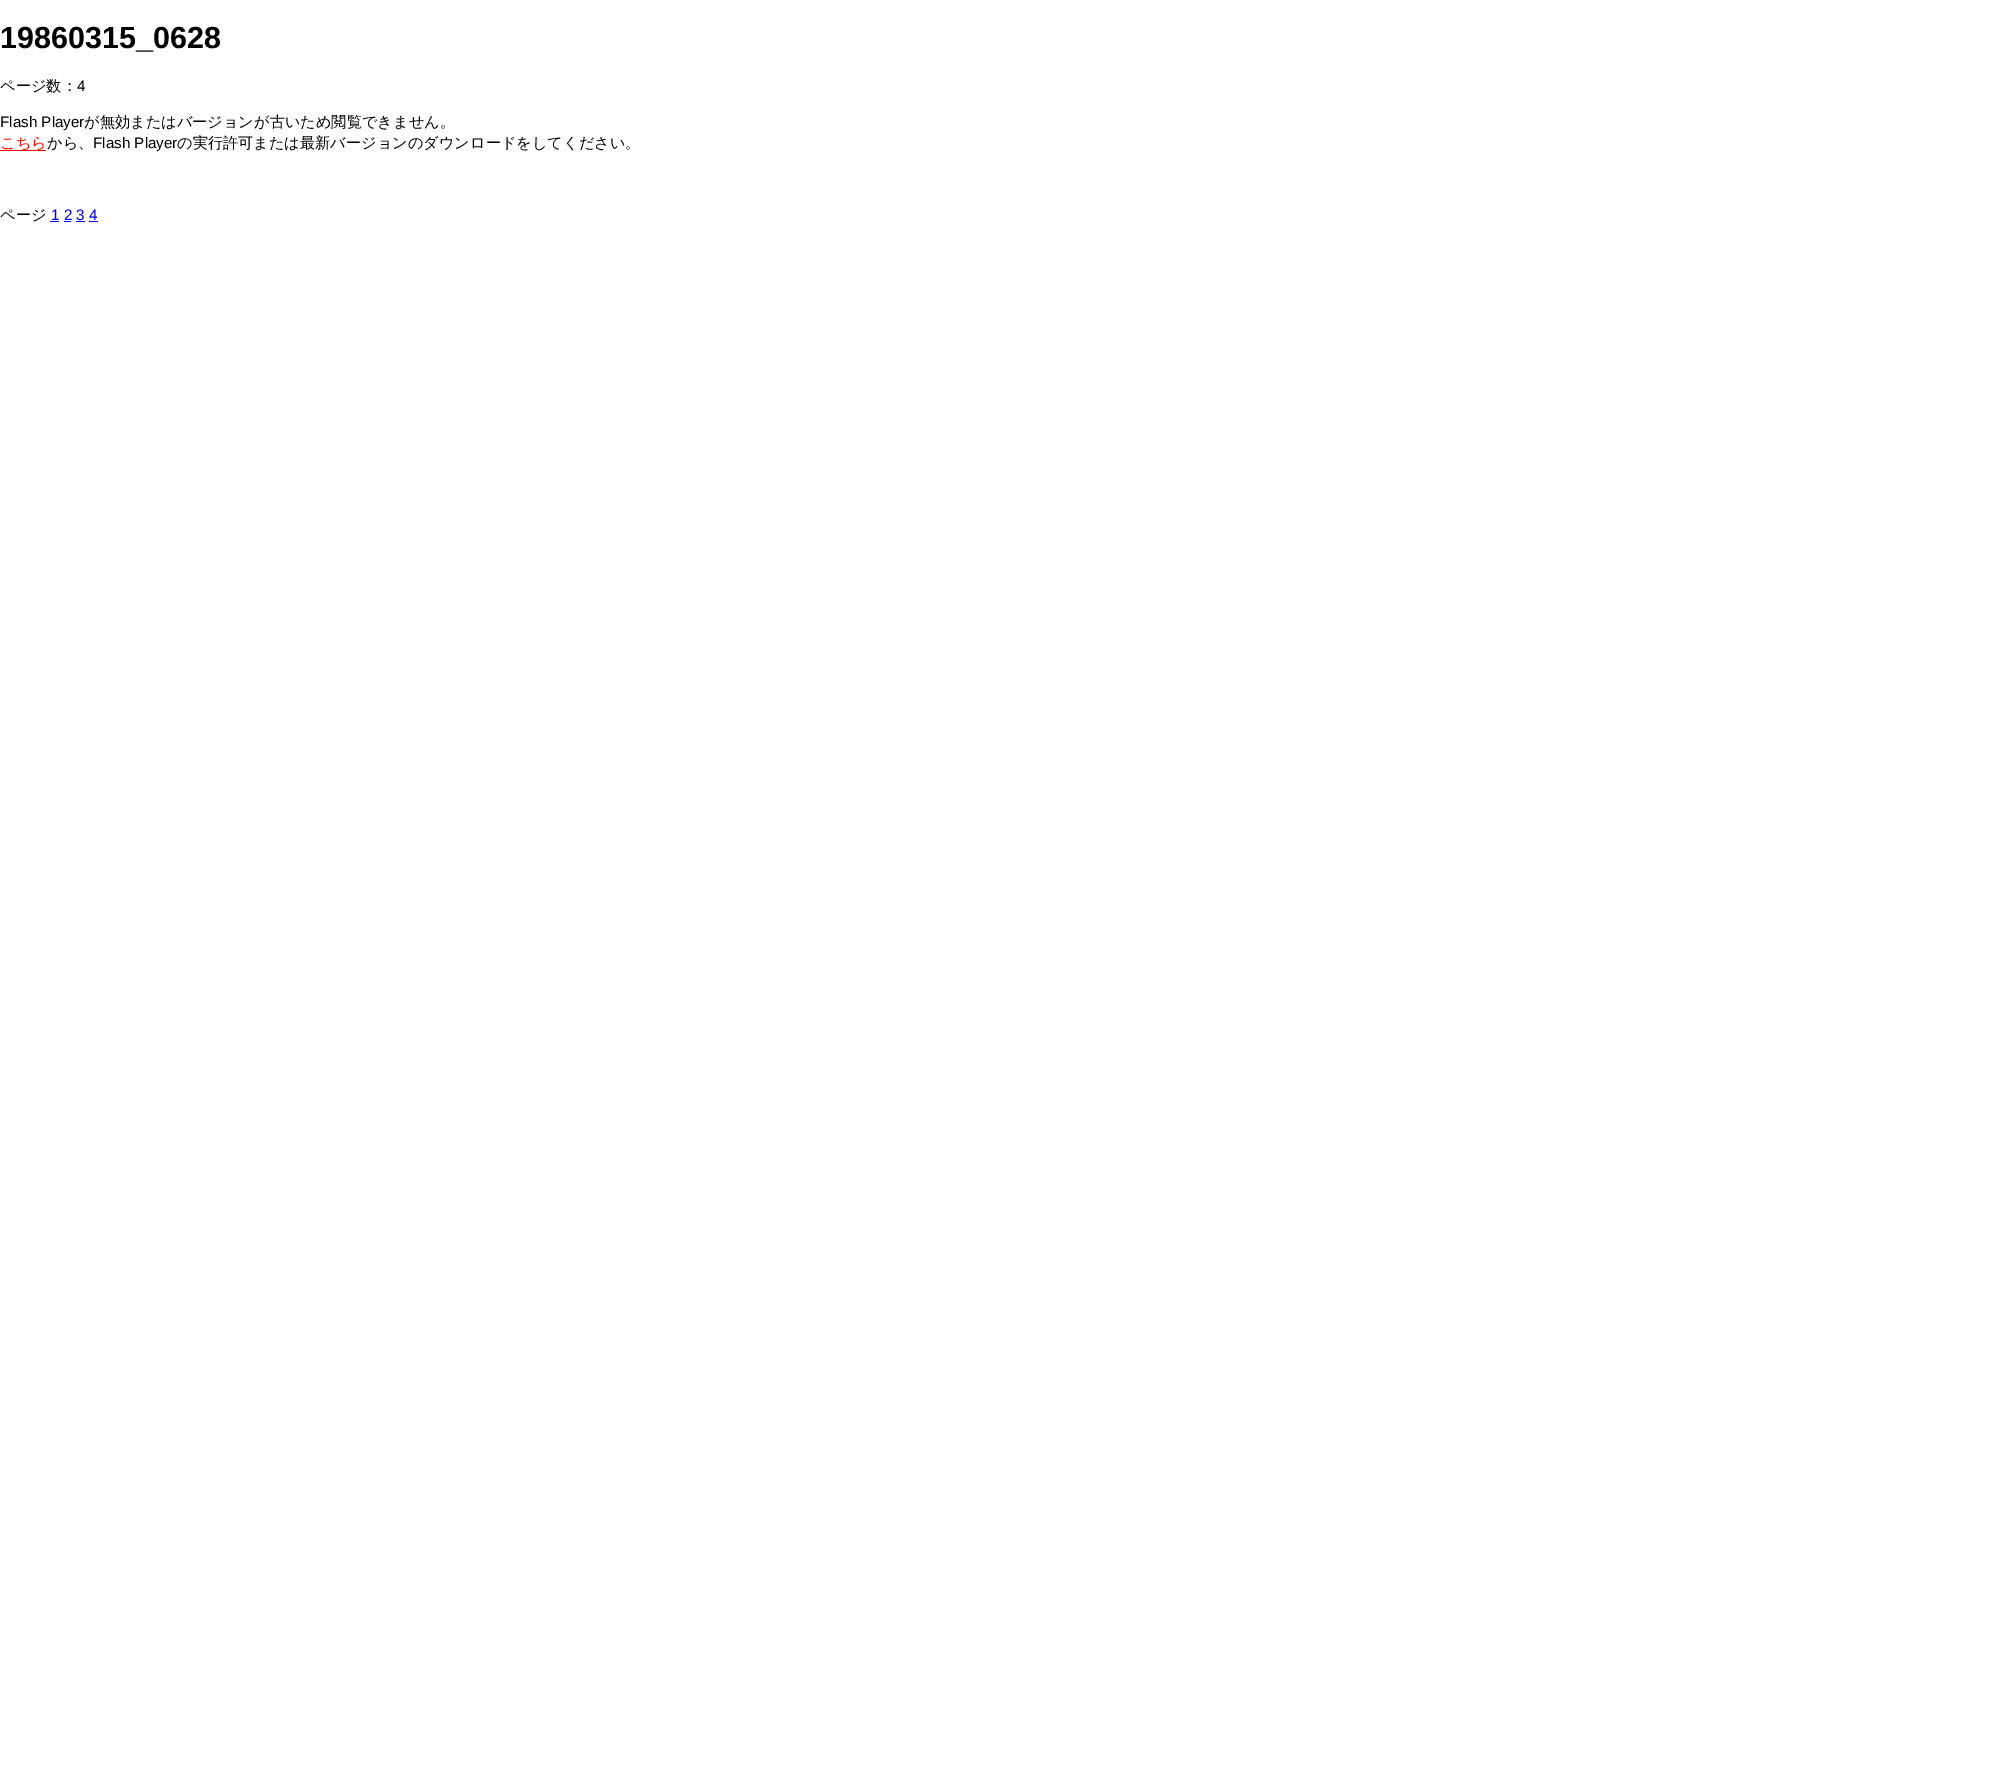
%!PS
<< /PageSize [2005 1792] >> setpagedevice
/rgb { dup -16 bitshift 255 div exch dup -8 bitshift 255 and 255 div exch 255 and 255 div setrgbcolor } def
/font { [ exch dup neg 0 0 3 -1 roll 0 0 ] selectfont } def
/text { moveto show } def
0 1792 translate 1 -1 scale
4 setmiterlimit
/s1 { /LiberationSans-Bold 30.5 font 16#000000 rgb } def
/s2 { /WenQuanYiZenHei-Medium 15.2 font 16#000000 rgb } def
/s3 { /LiberationSans-Regular 15.2 font 16#000000 rgb } def
/s4 { /WenQuanYiZenHei-Medium 15.2 font 16#FF0000 rgb } def
/s5 { /LiberationSans-Regular 15.2 font 16#0000EE rgb } def
16#FFFFFF rgb
0 0 2005 1792 rectfill
s1
(19860315_0628) 0 48 text
s2
(ページ数：) 0 91 text
s3
(4) 77 91 text
(Flash Player) 0 127 text
s2
(が無効またはバージョンが古いため閲覧できません。) 84 127 text
16#FF0000 rgb
0 150 46 1 rectfill
(こちら) 0 148 text
s2
(から、) 47 148 text
s3
(Flash Player) 93 148 text
s2
(の実行許可または最新バージョンのダウンロードをしてください。) 177 148 text
(ページ) 0 220 text
s5
(1 2 3 4) 51 220 text
50 221 9 1 rectfill
64 221 7 1 rectfill
76 221 9 1 rectfill
89 221 9 1 rectfill
showpage
